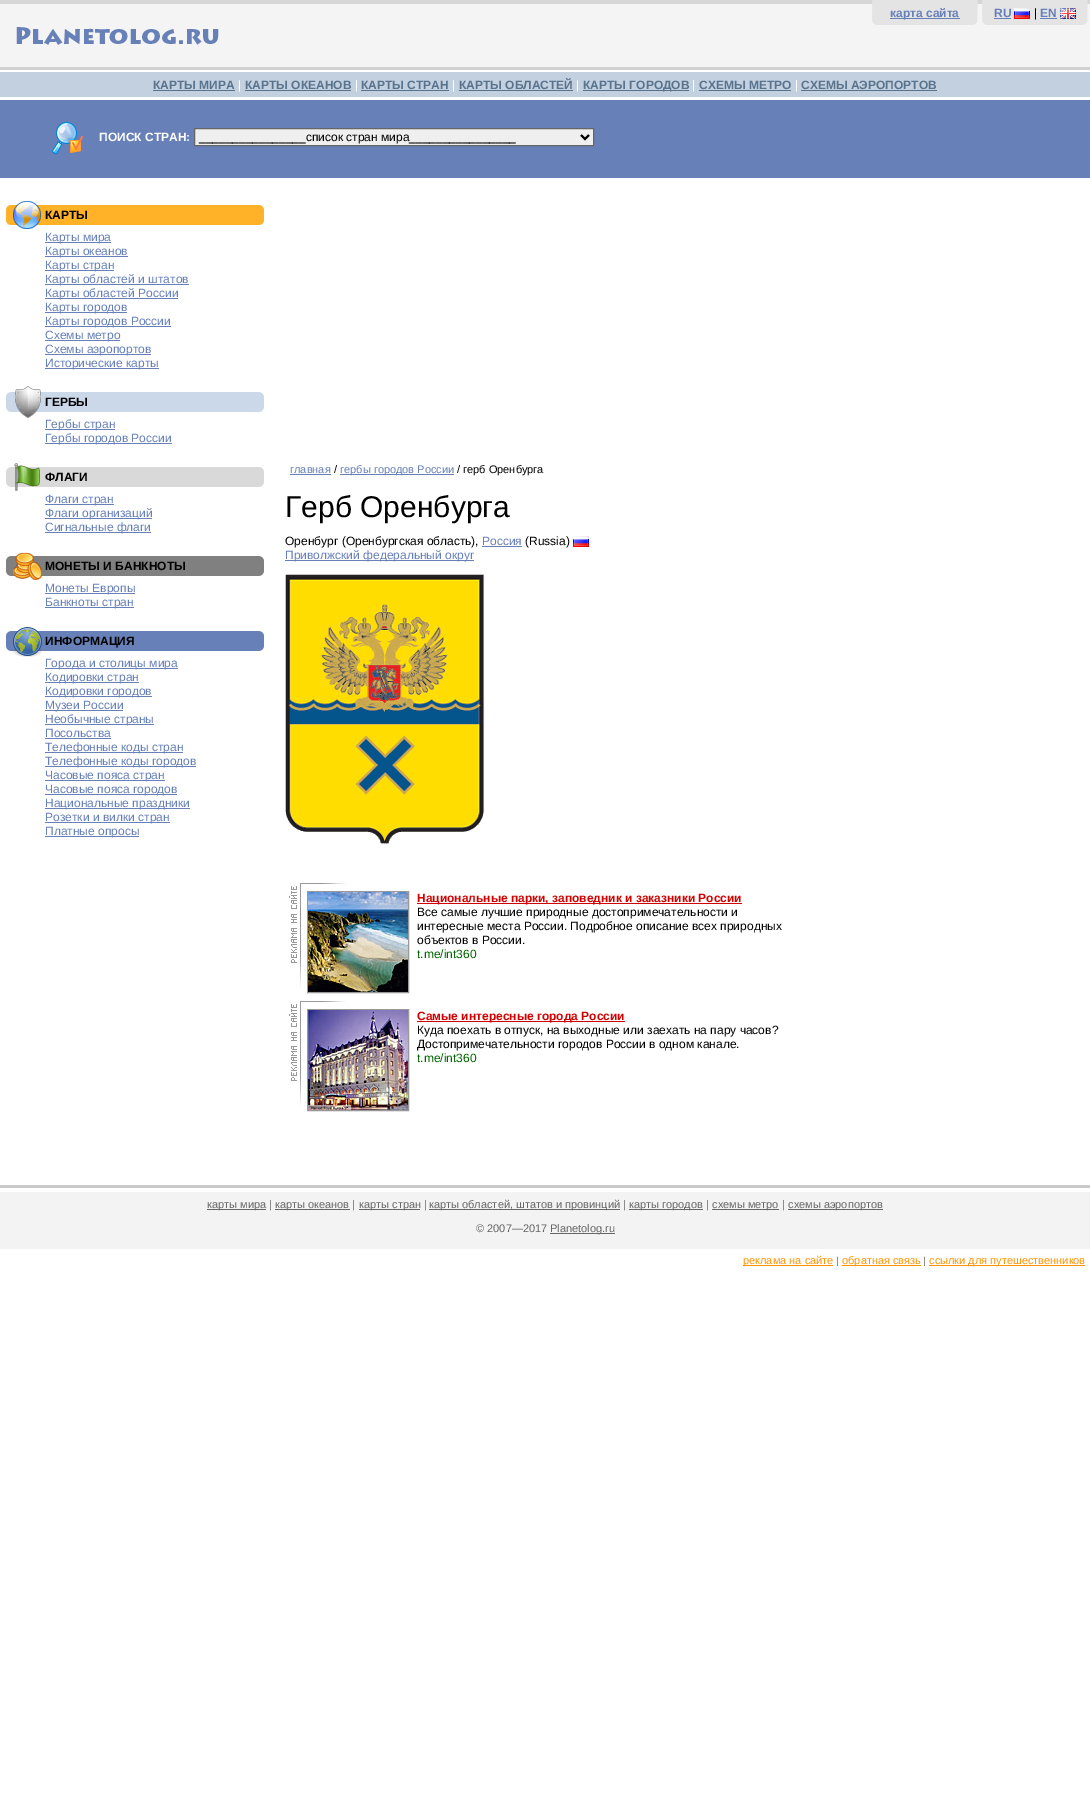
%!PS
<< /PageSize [1090 1820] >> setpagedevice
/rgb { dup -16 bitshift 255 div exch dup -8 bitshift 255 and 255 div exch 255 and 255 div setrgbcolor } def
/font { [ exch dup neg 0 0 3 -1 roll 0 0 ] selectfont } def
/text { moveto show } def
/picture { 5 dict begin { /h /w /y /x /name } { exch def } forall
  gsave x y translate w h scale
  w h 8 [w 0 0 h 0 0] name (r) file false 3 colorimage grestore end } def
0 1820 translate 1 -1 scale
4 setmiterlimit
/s1 { /LiberationSans-Bold 12 font 16#6780B8 rgb } def
/s2 { /LiberationSans-Regular 12 font 16#000000 rgb } def
/s3 { /LiberationSans-Bold 12 font 16#59738C rgb } def
/s4 { /LiberationSans-Regular 12 font 16#FFFFFF rgb } def
/s5 { /LiberationSans-Bold 12 font 16#FFFFFF rgb } def
/s6 { /LiberationSans-Bold 12 font 16#000000 rgb } def
/s7 { /LiberationSans-Regular 12 font 16#6780B8 rgb } def
/s8 { /LiberationSans-Regular 11 font 16#6780B8 rgb } def
/s9 { /LiberationSans-Regular 11 font 16#000000 rgb } def
/s10 { /LiberationSans-Regular 30 font 16#000000 rgb } def
/s11 { /LiberationSans-Bold 12 font 16#CF0101 rgb } def
/s12 { /LiberationSans-Regular 12 font 16#006600 rgb } def
/s13 { /LiberationSans-Regular 11 font 16#666666 rgb } def
/s14 { /LiberationSans-Regular 11 font 16#FD9403 rgb } def
/s15 { /LiberationSans-Regular 10 font 16#666666 rgb } def
16#FFFFFF rgb
0 0 1090 1820 rectfill
(pic1.raw) 0 0 1090 70 picture
(pic2.raw) 870 0 110 25 picture
16#6780B8 rgb
890 18 70 1 rectfill
s1
(карта сайта) 890 17 text
(pic2.raw) 980 0 110 25 picture
(RU) 994 17 text
994 18 17 1 rectfill
(pic3.raw) 1014 8 16 11 picture
s2
(|) 1034 17 text
s1
(EN) 1040 17 text
1040 18 17 1 rectfill
(pic4.raw) 1060 8 16 11 picture
(pic5.raw) 16 27 203 18 picture
(pic6.raw) 0 70 1090 30 picture
s3
(КАРТЫ МИРА) 153 89 text
153 90 82 1 rectfill
s4
(|) 238 89 text
s3
(КАРТЫ ОКЕАНОВ) 245 89 text
245 90 106 1 rectfill
s4
(|) 355 89 text
s3
(КАРТЫ СТРАН) 361 89 text
361 90 88 1 rectfill
s4
(|) 452 89 text
s3
(КАРТЫ ОБЛАСТЕЙ) 459 89 text
459 90 114 1 rectfill
s4
(|) 576 89 text
16#59738C rgb
583 90 106 1 rectfill
s3
(КАРТЫ ГОРОДОВ) 583 89 text
s4
(|) 692 89 text
s3
(СХЕМЫ МЕТРО) 699 89 text
699 90 92 1 rectfill
s4
(|) 795 89 text
s3
(СХЕМЫ АЭРОПОРТОВ) 801 89 text
801 90 136 1 rectfill
16#6780B8 rgb
0 100 1090 78 rectfill
(pic7.raw) 52 122 31 33 picture
s5
(ПОИСК СТРАН:) 99 141 text
16#EFEFEF rgb
194.5 128.5 moveto 593.5 128.5 lineto 593.5 145.5 lineto 194.5 145.5 lineto closepath gsave fill grestore
16#666666 rgb
stroke
16#000000 rgb
2 setlinewidth
581 135 moveto 585 139 lineto 589 135 lineto stroke
s2
(________________список стран мира________________) 199 141 text
(pic8.raw) 6 201 258 28 picture
s6
(КАРТЫ) 45 219 text
16#6780B8 rgb
45 242 66 1 rectfill
s7
(Карты мира) 45 241 text
45 256 83 1 rectfill
(Карты океанов) 45 255 text
45 270 69 1 rectfill
(Карты стран) 45 269 text
45 284 144 1 rectfill
(Карты областей и штатов) 45 283 text
45 298 133 1 rectfill
(Карты областей России) 45 297 text
45 312 82 1 rectfill
(Карты городов) 45 311 text
45 326 126 1 rectfill
(Карты городов России) 45 325 text
45 340 75 1 rectfill
(Схемы метро) 45 339 text
45 354 106 1 rectfill
(Схемы аэропортов) 45 353 text
45 368 114 1 rectfill
(Исторические карты) 45 367 text
(pic9.raw) 6 386 258 32 picture
s6
(ГЕРБЫ) 45 406 text
16#6780B8 rgb
45 429 70 1 rectfill
s7
(Гербы стран) 45 428 text
45 443 127 1 rectfill
(Гербы городов России) 45 442 text
(pic10.raw) 6 463 258 28 picture
s6
(ФЛАГИ) 45 481 text
16#6780B8 rgb
45 504 69 1 rectfill
s7
(Флаги стран) 45 503 text
45 518 107 1 rectfill
(Флаги организаций) 45 517 text
45 532 106 1 rectfill
(Сигнальные флаги) 45 531 text
(pic11.raw) 6 552 258 28 picture
s6
(МОНЕТЫ И БАНКНОТЫ) 45 570 text
16#6780B8 rgb
45 593 90 1 rectfill
s7
(Монеты Европы) 45 592 text
45 607 89 1 rectfill
(Банкноты стран) 45 606 text
(pic12.raw) 6 627 258 30 picture
s6
(ИНФОРМАЦИЯ) 45 645 text
16#6780B8 rgb
45 668 133 1 rectfill
s7
(Города и столицы мира) 45 667 text
45 682 94 1 rectfill
(Кодировки стран) 45 681 text
45 696 107 1 rectfill
(Кодировки городов) 45 695 text
45 710 78 1 rectfill
(Музеи России) 45 709 text
45 724 109 1 rectfill
(Необычные страны) 45 723 text
(Посольства) 45 737 text
45 738 66 1 rectfill
45 752 138 1 rectfill
(Телефонные коды стран) 45 751 text
45 766 151 1 rectfill
(Телефонные коды городов) 45 765 text
45 780 120 1 rectfill
(Часовые пояса стран) 45 779 text
45 794 132 1 rectfill
(Часовые пояса городов) 45 793 text
45 808 145 1 rectfill
(Национальные праздники) 45 807 text
45 822 125 1 rectfill
(Розетки и вилки стран) 45 821 text
45 836 94 1 rectfill
(Платные опросы) 45 835 text
s8
(главная) 290 473 text
290 474 41 1 rectfill
s9
(/) 334 473 text
16#6780B8 rgb
340 474 114 1 rectfill
(гербы городов России) 340 473 text
s9
(/ герб Оренбурга) 457 473 text
s10
(Герб Оренбурга) 285 517 text
s2
(Оренбург \(Оренбургская область\),) 285 545 text
s7
(Россия) 482 545 text
482 546 40 1 rectfill
s2
(\(Russia\)) 525 545 text
(pic3.raw) 573 536 16 11 picture
16#6780B8 rgb
285 560 189 1 rectfill
(Приволжский федеральный округ) 285 559 text
(pic13.raw) 285 574 200 271 picture
(pic14.raw) 289 883 57 105 picture
16#999999 rgb
1 setlinewidth
307.5 891.5 101 101 rectstroke
(pic15.raw) 308 892 100 100 picture
16#CF0101 rgb
417 903 325 1 rectfill
s11
(Национальные парки, заповедник и заказники России) 417 902 text
s2
(Все самые лучшие природные достопримечательности и) 417 916 text
(интересные места России. Подробное описание всех природных) 417 930 text
(объектов в России.) 417 944 text
s12
(t.me/int360) 417 958 text
(pic14.raw) 289 1001 57 105 picture
16#999999 rgb
307.5 1009.5 101 101 rectstroke
(pic16.raw) 308 1010 100 100 picture
16#CF0101 rgb
417 1021 208 1 rectfill
s11
(Самые интересные города России) 417 1020 text
s2
(Куда поехать в отпуск, на выходные или заехать на пару часов?) 417 1034 text
(Достопримечательности городов России в одном канале.) 417 1048 text
s12
(t.me/int360) 417 1062 text
(pic17.raw) 0 1185 1090 64 picture
16#666666 rgb
207 1209 59 1 rectfill
s13
(карты мира |) 207 1208 text
275 1209 75 1 rectfill
(карты океанов |) 275 1208 text
359 1209 61 1 rectfill
(карты стран |) 359 1208 text
429 1209 191 1 rectfill
(карты областей, штатов и провинций |) 429 1208 text
629 1209 74 1 rectfill
(карты городов |) 629 1208 text
712 1209 67 1 rectfill
(схемы метро |) 712 1208 text
788 1209 95 1 rectfill
(схемы аэропортов) 788 1208 text
(© 2007—2017) 476 1232 text
550 1233 65 1 rectfill
(Planetolog.ru) 550 1232 text
16#FD9403 rgb
743 1265 90 1 rectfill
(реклама на сайте) 743 1264 text
s15
(|) 836 1264 text
16#FD9403 rgb
842 1265 79 1 rectfill
s14
(обратная связь) 842 1264 text
s15
(|) 923 1264 text
16#FD9403 rgb
929 1265 156 1 rectfill
s14
(ссылки для путешественников) 929 1264 text
showpage
